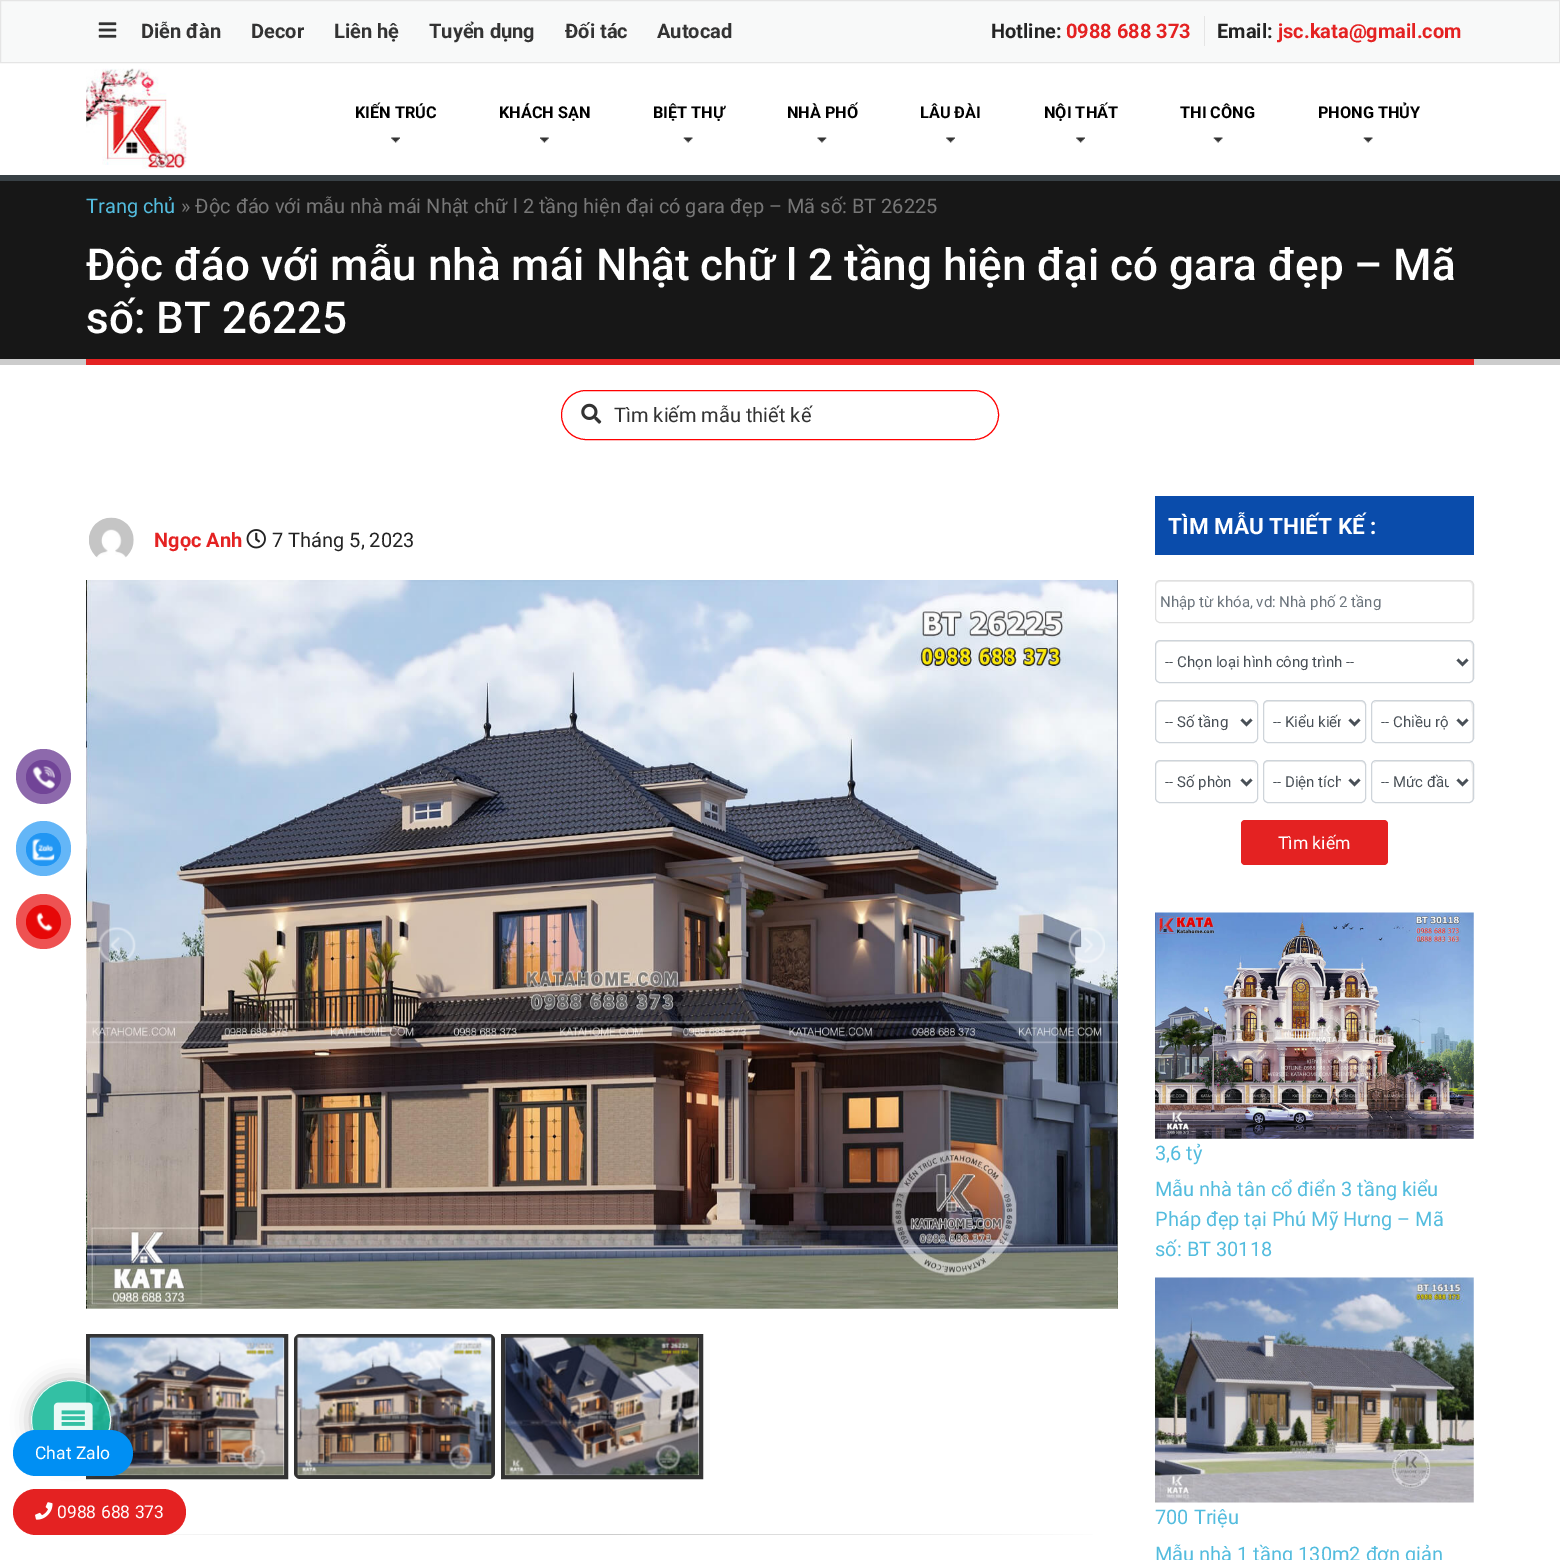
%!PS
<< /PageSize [1560 1560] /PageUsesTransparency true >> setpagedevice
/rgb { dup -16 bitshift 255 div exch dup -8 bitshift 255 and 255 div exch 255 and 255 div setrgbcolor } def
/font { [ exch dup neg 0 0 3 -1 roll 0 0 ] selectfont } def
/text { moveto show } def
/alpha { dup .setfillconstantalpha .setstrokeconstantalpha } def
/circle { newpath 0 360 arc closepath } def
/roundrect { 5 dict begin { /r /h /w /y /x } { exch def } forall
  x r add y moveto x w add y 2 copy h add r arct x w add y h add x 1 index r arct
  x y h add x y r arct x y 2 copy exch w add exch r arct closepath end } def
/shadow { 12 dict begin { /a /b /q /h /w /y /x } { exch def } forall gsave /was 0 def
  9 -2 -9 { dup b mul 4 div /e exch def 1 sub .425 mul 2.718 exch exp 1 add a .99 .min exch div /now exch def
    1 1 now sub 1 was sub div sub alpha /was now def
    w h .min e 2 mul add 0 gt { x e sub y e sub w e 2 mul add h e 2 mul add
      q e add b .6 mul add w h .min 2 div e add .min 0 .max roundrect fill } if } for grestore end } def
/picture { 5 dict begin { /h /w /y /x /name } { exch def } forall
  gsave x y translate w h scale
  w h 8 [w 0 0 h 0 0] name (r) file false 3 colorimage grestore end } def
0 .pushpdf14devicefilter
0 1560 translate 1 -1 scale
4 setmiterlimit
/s1 { /Roboto-Bold 20 font 16#333333 rgb } def
/s2 { /Roboto-Bold 20 font 16#232323 rgb } def
/s3 { /Roboto-Bold 20 font 16#E42222 rgb } def
/s4 { /Roboto-Bold 16.25 font 16#000000 rgb } def
/s5 { /Roboto-Regular 20 font 16#53BCDE rgb } def
/s6 { /Roboto-Regular 20 font 16#777777 rgb } def
/s7 { /Roboto-Medium 44 font 16#FFFFFF rgb } def
/s8 { /Roboto-Regular 20 font 16#333333 rgb } def
/s9 { /Roboto-Regular 17.5 font 16#FFFFFF rgb } def
/s10 { /Roboto-Regular 20 font 16#232323 rgb } def
/s11 { /Roboto-Bold 22.5 font 16#FFFFFF rgb } def
/s12 { /Roboto-Regular 15 font 16#6C757D rgb } def
/s13 { /Roboto-Regular 15 font 16#495057 rgb } def
16#FFFFFF rgb
0 0 1560 1560 rectfill
16#F8F9F9 rgb
0.5 0.5 moveto 1559.5 0.5 lineto 1559.5 62.5 lineto 0.5 62.5 lineto closepath gsave fill grestore
16#E5E5E5 rgb
stroke
(pic1.raw) 98 22 19 16 picture
s1
(Diễn đàn) 141 38 text
(Decor) 251 38 text
(Liên hệ) 334 38 text
(Tuyển dụng) 429 38 text
(Đối tác) 565 38 text
(Autocad) 657 38 text
16#E5E5E5 rgb
1204 16 1 30 rectfill
s2
(Hotline:) 991 38 text
s3
(0988 688 373) 1066 38 text
s2
(Email:) 1217 38 text
s3
(jsc.kata@gmail.com) 1278 38 text
(pic2.raw) 86 68 101 101 picture
(pic3.raw) 391 137 9 6 picture
s4
(KIẾN TRÚC) 355 118 text
(pic4.raw) 540 137 9 6 picture
(KHÁCH SẠN) 499 118 text
(pic5.raw) 683 137 10 6 picture
(BIỆT THỰ) 653 118 text
(pic6.raw) 817 137 10 6 picture
(NHÀ PHỐ) 787 118 text
(pic3.raw) 946 137 9 6 picture
(LÂU ĐÀI) 920 118 text
(pic3.raw) 1076 137 9 6 picture
(NỘI THẤT) 1044 118 text
(pic7.raw) 1213 137 10 6 picture
(THI CÔNG) 1180 118 text
(pic5.raw) 1363 137 10 6 picture
(PHONG THỦY) 1318 118 text
16#171717 rgb
0 181 1560 178 rectfill
16#384045 rgb
0 175 1560 6 rectfill
16#CCCCCC rgb
0 359 1560 6 rectfill
s5
(Trang chủ) 86 213 text
s6
(» Độc đáo với mẫu nhà mái Nhật chữ l 2 tầng hiện đại có gara đẹp – Mã số: BT 26225) 181 213 text
16#E42222 rgb
86 359 1388 6 rectfill
s7
(Độc đáo với mẫu nhà mái Nhật chữ l 2 tầng hiện đại có gara đẹp – Mã) 86 280 text
(số: BT 26225) 86 333 text
16#FF0000 rgb
561.5 390.5 437 49 24.5 roundrect stroke
(pic8.raw) 581 403 21 21 picture
s8
(Tìm kiếm mẫu thiết kế) 614 422 text
4 setlinewidth
88 1336 198 141 rectstroke
(pic17.raw) 89 1336 196 140 picture
gsave
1 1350 moveto 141 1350 lineto 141 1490 lineto 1 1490 lineto closepath 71 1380 moveto 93 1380 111 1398 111 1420 curveto 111 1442 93 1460 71 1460 curveto 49 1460 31 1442 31 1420 curveto 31 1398 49 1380 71 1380 curveto closepath eoclip newpath
16#AAAAAA rgb
31 1380 80 80 40 9.5 0.9 shadow
grestore
0.9 alpha
16#1DB99A rgb
71 1420 40 circle fill
16#FFFFFF rgb
1 setlinewidth
71 1420 39.5 circle stroke
1 alpha
16#008FF3 rgb
13 1430 120 46 23 roundrect fill
s9
(Chat Zalo) 35 1459 text
gsave 163 1534 moveto 1093 1534 lineto 1093 1535 lineto 163 1535 lineto closepath clip newpath
<< /ShadingType 2 /ColorSpace /DeviceRGB /Coords [86 1534 1118 1534] /Extend [true true] /Function << /FunctionType 3 /Domain [0 1] /Functions [<< /FunctionType 2 /Domain [0 1] /C0 [1 1 1] /C1 [0.8 0.8 0.8] /N 1 >> << /FunctionType 2 /Domain [0 1] /C0 [0.8 0.8 0.8] /C1 [1 1 1] /N 1 >>] /Bounds [0.5] /Encode [0 1 0 1] >> >> shfill grestore
16#E42222 rgb
13 1489 173 46 23 roundrect fill
(pic9.raw) 35 1502 18 18 picture
s9
(0988 688 373) 57 1518 text
(pic10.raw) 89 517 45 41 picture
s3
(Ngọc Anh) 154 547 text
(pic11.raw) 246 529 20 20 picture
s10
(7 Tháng 5, 2023) 272 547 text
(pic13.raw) 86 1308 1 1 picture
(pic12.raw) 86 580 1032 729 picture
(pic14.raw) 1117 580 1 729 picture
(pic15.raw) 98 927 38 36 picture
(pic16.raw) 1068 927 37 36 picture
16#333333 rgb
300 1334 moveto 297 1334 294 1337 294 1340 curveto 294 1473 lineto 294 1476 297 1479 300 1479 curveto 489 1479 lineto 492 1479 495 1476 495 1473 curveto 495 1340 lineto 495 1337 492 1334 489 1334 curveto closepath 298 1338 moveto 298 1475 lineto 491 1475 lineto 491 1338 lineto closepath eofill
(pic18.raw) 297 1336 195 140 picture
4 setlinewidth
503 1336 198 141 rectstroke
(pic19.raw) 504 1336 196 140 picture
16#0A4CAB rgb
1155 496 319 59 rectfill
s11
(TÌM MẪU THIẾT KẾ :) 1168 534 text
16#ECECEC rgb
1160 582 moveto 1469 582 lineto 1471 582 1472 584 1472 586 curveto 1472 620 lineto 1473 619 1473 618 1473 617 curveto 1473 585 lineto 1473 583 1471 581 1469 581 curveto 1160 581 lineto 1158 581 1156 583 1156 585 curveto 1156 586 lineto 1156 584 1158 582 1160 582 curveto closepath fill
16#E0E0E0 rgb
1 setlinewidth
1155.5 580.5 318 42 4.5 roundrect stroke
s12
(Nhập từ khóa, vd: Nhà phố 2 tầng) 1160 607 text
16#ECECEC rgb
1160 642 moveto 1469 642 lineto 1471 642 1472 644 1472 646 curveto 1472 680 lineto 1473 679 1473 678 1473 677 curveto 1473 645 lineto 1473 643 1471 641 1469 641 curveto 1160 641 lineto 1158 641 1156 643 1156 645 curveto 1156 646 lineto 1156 644 1158 642 1160 642 curveto closepath fill
16#CED4DA rgb
1155.5 640.5 318 42 4.5 roundrect stroke
16#495057 rgb
2.5 setlinewidth
1457.5 659.5 moveto 1462.5 664.5 lineto 1467.5 659.5 lineto stroke
(-- Chọn loại hình công trình --) 1165 667 text
16#ECECEC rgb
1160 702 moveto 1252 702 lineto 1255 702 1256 704 1256 706 curveto 1256 697 1241 701 1237 701 curveto 1175 701 lineto 1171 701 1156 697 1156 706 curveto 1156 704 1158 702 1160 702 curveto closepath fill
16#CED4DA rgb
1 setlinewidth
1155.5 700.5 102 42 4.5 roundrect stroke
16#495057 rgb
2.5 setlinewidth
1241.5 719.5 moveto 1246.5 724.5 lineto 1251.5 719.5 lineto stroke
(-- Số tầng) 1165 727 text
16#ECECEC rgb
1268 702 moveto 1361 702 lineto 1363 702 1365 704 1365 706 curveto 1365 697 1350 701 1346 701 curveto 1284 701 lineto 1279 701 1264 697 1264 706 curveto 1264 704 1265 702 1268 702 curveto closepath fill
16#CED4DA rgb
1 setlinewidth
1263.5 700.5 102 42 4.5 roundrect stroke
16#495057 rgb
2.5 setlinewidth
1349.5 719.5 moveto 1354.5 724.5 lineto 1359.5 719.5 lineto stroke
gsave
1273 711 68 20 rectclip
(-- Kiểu kiến) 1273 727 text
grestore
16#ECECEC rgb
1376 702 moveto 1454 702 lineto 1470 702 1472 698 1472 712 curveto 1472 740 lineto 1473 739 1473 738 1473 737 curveto 1473 705 lineto 1473 703 1471 701 1469 701 curveto 1377 701 lineto 1376 701 1374 702 1374 703 curveto closepath fill
16#CED4DA rgb
1 setlinewidth
1371.5 700.5 102 42 4.5 roundrect stroke
16#495057 rgb
2.5 setlinewidth
1457.5 719.5 moveto 1462.5 724.5 lineto 1467.5 719.5 lineto stroke
(-- Chiều rộ) 1381 727 text
16#ECECEC rgb
1160 762 moveto 1252 762 lineto 1255 762 1256 764 1256 766 curveto 1256 757 1241 761 1237 761 curveto 1175 761 lineto 1171 761 1156 757 1156 766 curveto 1156 764 1158 762 1160 762 curveto closepath fill
16#CED4DA rgb
1 setlinewidth
1155.5 760.5 102 42 4.5 roundrect stroke
16#495057 rgb
2.5 setlinewidth
1241.5 779.5 moveto 1246.5 784.5 lineto 1251.5 779.5 lineto stroke
(-- Số phòn) 1165 787 text
16#ECECEC rgb
1268 762 moveto 1361 762 lineto 1363 762 1365 764 1365 766 curveto 1365 757 1350 761 1346 761 curveto 1284 761 lineto 1279 761 1264 757 1264 766 curveto 1264 764 1265 762 1268 762 curveto closepath fill
16#CED4DA rgb
1 setlinewidth
1263.5 760.5 102 42 4.5 roundrect stroke
16#495057 rgb
2.5 setlinewidth
1349.5 779.5 moveto 1354.5 784.5 lineto 1359.5 779.5 lineto stroke
gsave
1273 771 68 20 rectclip
(-- Diện tích) 1273 787 text
grestore
16#ECECEC rgb
1376 762 moveto 1454 762 lineto 1470 762 1472 758 1472 772 curveto 1472 800 lineto 1473 799 1473 798 1473 797 curveto 1473 765 lineto 1473 763 1471 761 1469 761 curveto 1377 761 lineto 1376 761 1374 762 1374 763 curveto closepath fill
16#CED4DA rgb
1 setlinewidth
1371.5 760.5 102 42 4.5 roundrect stroke
16#495057 rgb
2.5 setlinewidth
1457.5 779.5 moveto 1462.5 784.5 lineto 1467.5 779.5 lineto stroke
gsave
1381 771 68 20 rectclip
(-- Mức đầu) 1381 787 text
grestore
16#E42222 rgb
1241 820 147 45 4 roundrect fill
s9
(Tìm kiếm) 1278 849 text
(pic20.raw) 1155 912 319 227 picture
s5
(3,6 tỷ) 1155 1160 text
(Mẫu nhà tân cổ điển 3 tầng kiểu) 1155 1196 text
(Pháp đẹp tại Phú Mỹ Hưng – Mã) 1155 1226 text
(số: BT 30118) 1155 1256 text
(pic21.raw) 1155 1277 319 226 picture
(700 Triệu) 1155 1524 text
(Mẫu nhà 1 tầng 130m2 đơn giản) 1155 1561 text
16#8D69AC rgb
43.5 776.5 27.5 circle fill
16#714497 rgb
26 760 35 34 17 roundrect fill
(pic22.raw) 32 766 23 23 picture
16#64B6F7 rgb
43.5 848.5 27.5 circle fill
16#2196F3 rgb
26 833 35 33 16.5 roundrect fill
(pic23.raw) 32 838 23 23 picture
16#EE5252 rgb
43.5 921.5 27.5 circle fill
16#E60808 rgb
26 905 35 34 17 roundrect fill
(pic24.raw) 36 912 17 20 picture
(pic25.raw) 53 1402 40 28 picture
.poppdf14devicefilter showpage
